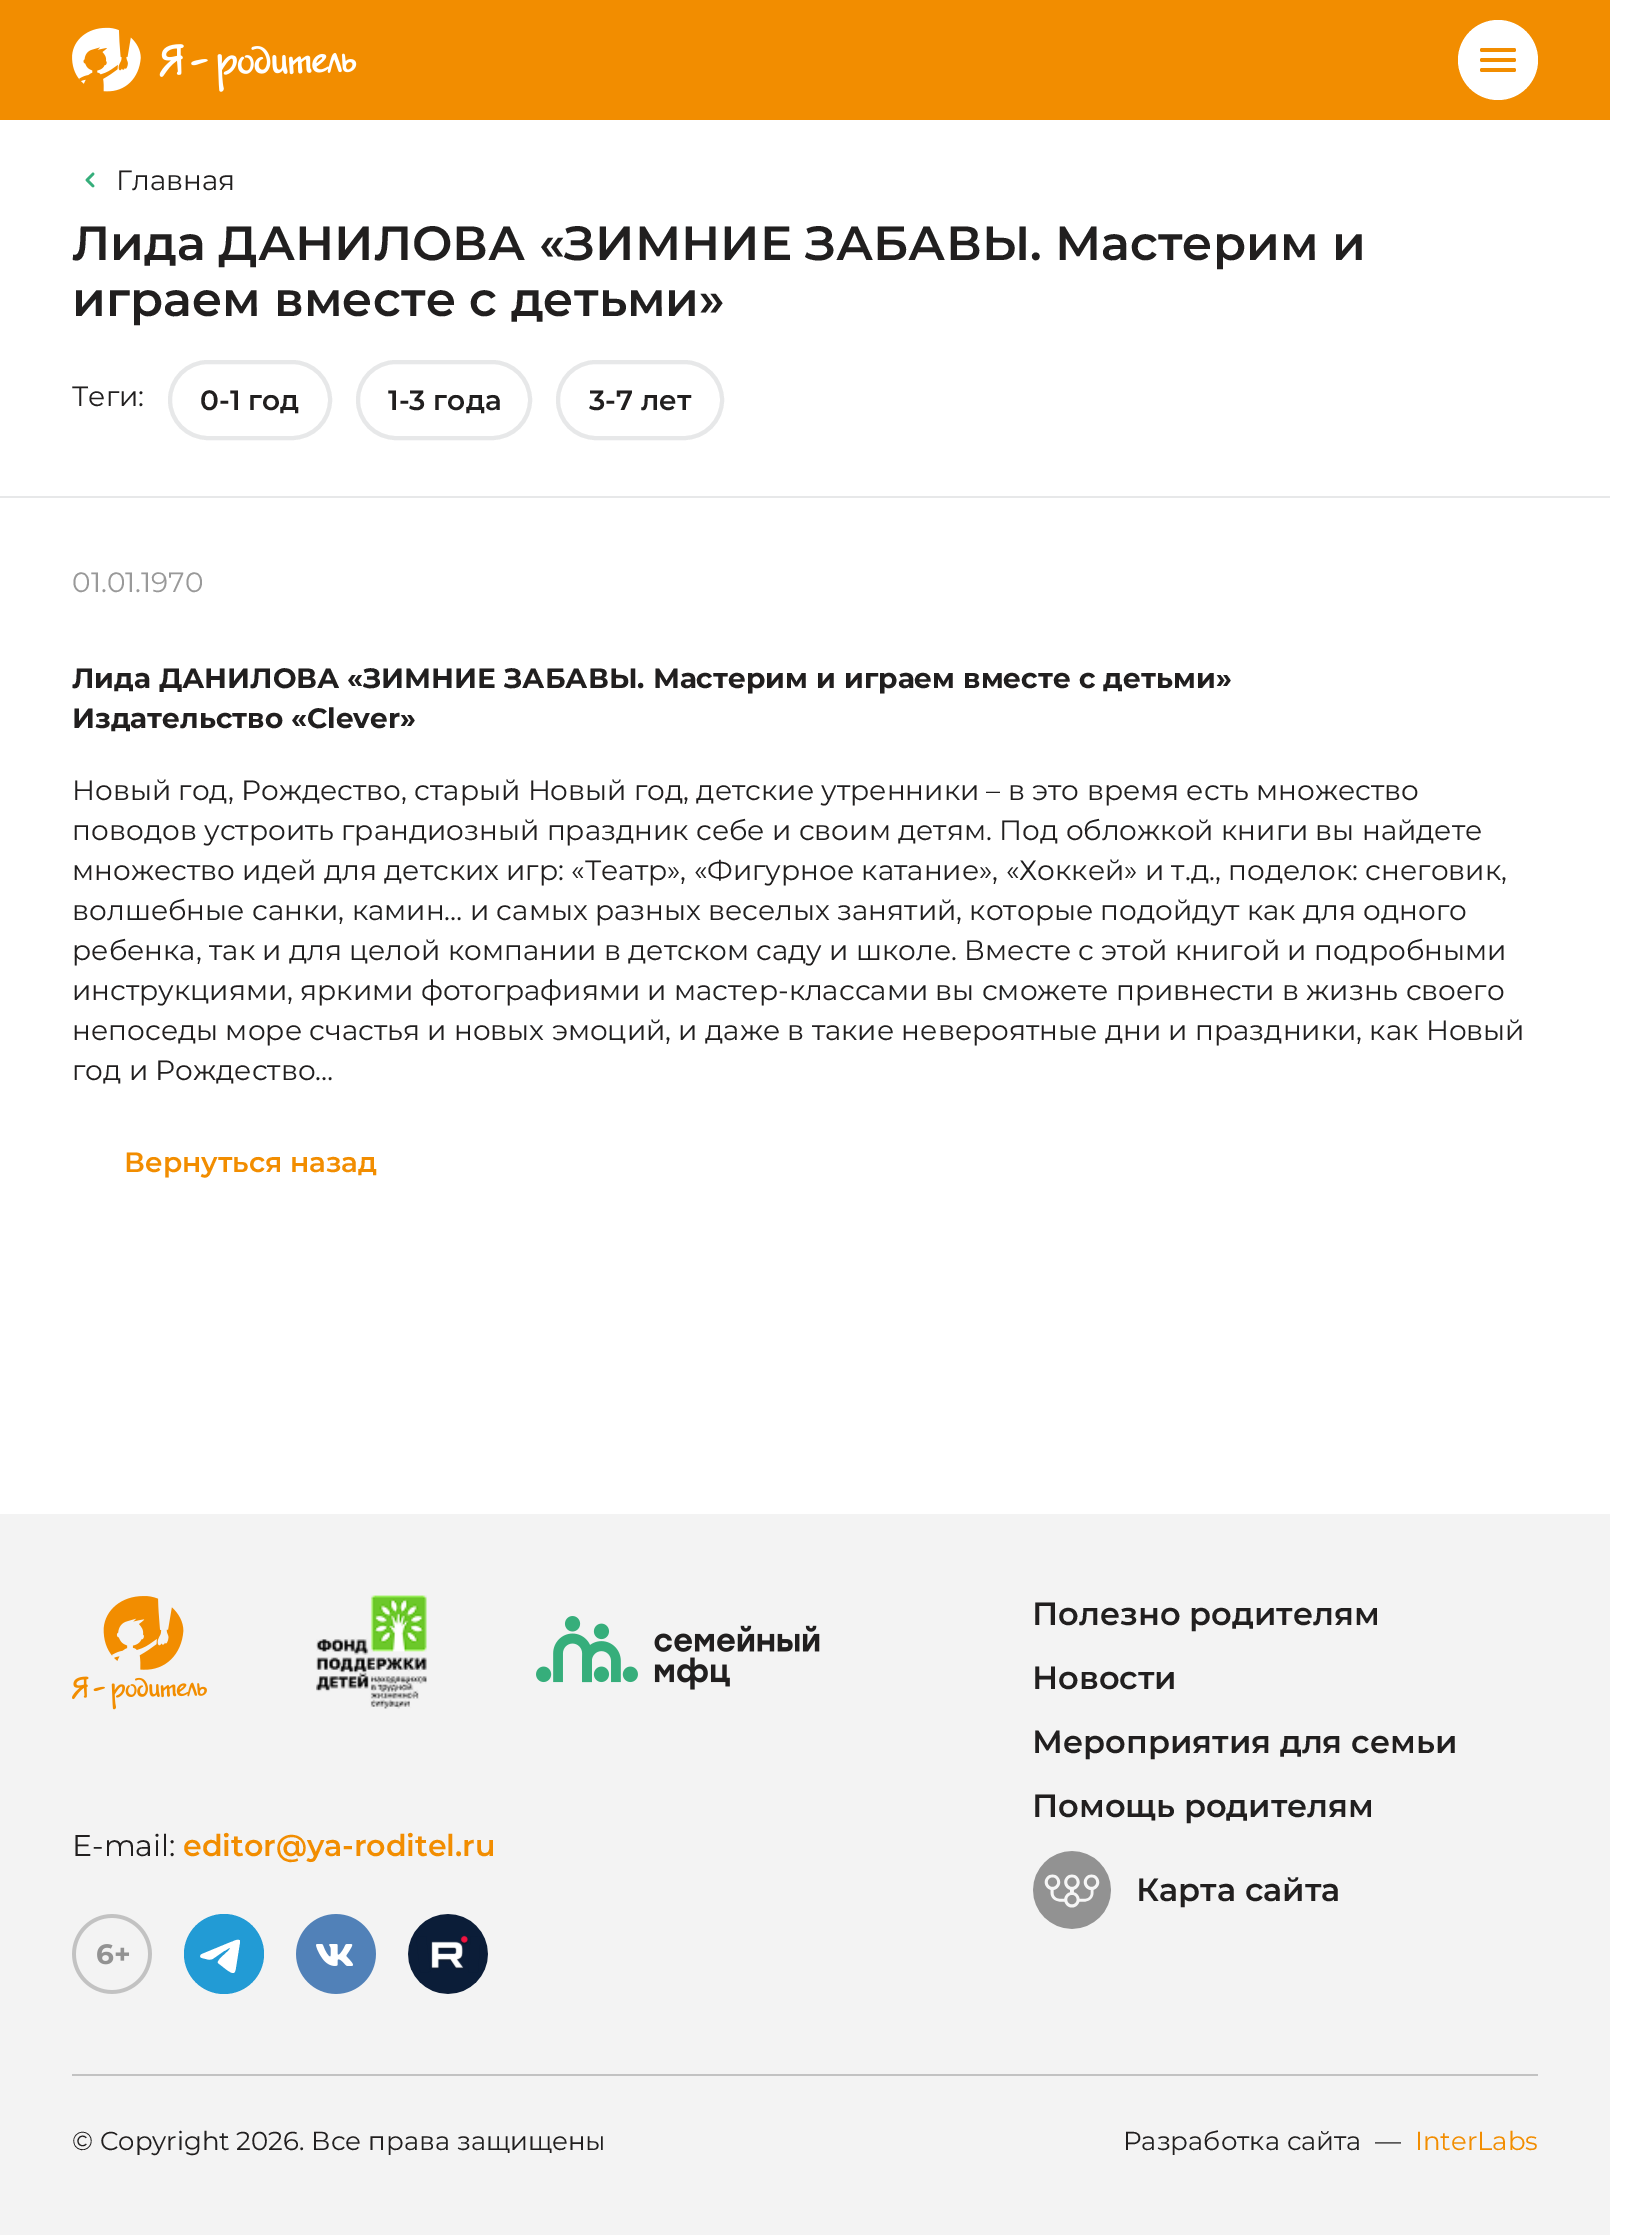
%!PS
<< /PageSize [1640 2235] >> setpagedevice
/rgb { dup -16 bitshift 255 div exch dup -8 bitshift 255 and 255 div exch 255 and 255 div setrgbcolor } def
/font { [ exch dup neg 0 0 3 -1 roll 0 0 ] selectfont } def
/text { moveto show } def
/circle { newpath 0 360 arc closepath } def
/roundrect { 5 dict begin { /r /h /w /y /x } { exch def } forall
  x r add y moveto x w add y 2 copy h add r arct x w add y h add x 1 index r arct
  x y h add x y r arct x y 2 copy exch w add exch r arct closepath end } def
/picture { 5 dict begin { /h /w /y /x /name } { exch def } forall
  gsave x y translate w h scale
  w h 8 [w 0 0 h 0 0] name (r) file false 3 colorimage grestore end } def
0 2235 translate 1 -1 scale
4 setmiterlimit
/s1 { /Montserrat-Regular 28 font 16#211F1F rgb } def
/s2 { /Montserrat-SemiBold 48 font 16#211F1F rgb } def
/s3 { /Montserrat-SemiBold 28 font 16#211F1F rgb } def
/s4 { /Montserrat-Regular 28 font 16#999999 rgb } def
/s5 { /Montserrat-Bold 28 font 16#211F1F rgb } def
/s6 { /Montserrat-SemiBold 28 font 16#F28D00 rgb } def
/s7 { /Montserrat-SemiBold 32 font 16#211F1F rgb } def
/s8 { /Montserrat-Regular 30 font 16#211F1F rgb } def
/s9 { /Montserrat-SemiBold 30 font 16#F28D00 rgb } def
/s10 { /Montserrat-Regular 26 font 16#211F1F rgb } def
/s11 { /Montserrat-Regular 26 font 16#F28D00 rgb } def
16#FFFFFF rgb
0 0 1640 2235 rectfill
16#F28D00 rgb
0 0 1610 120 rectfill
(pic1.raw) 72 27 285 65 picture
16#FFFFFF rgb
1498 60 40 circle fill
16#F28D00 rgb
1480 48 36 4 2 roundrect fill
1480 58 36 4 2 roundrect fill
1480 68 36 4 2 roundrect fill
(pic2.raw) 85 172 10 16 picture
s1
(Главная) 116 190 text
s2
(Лида ДАНИЛОВА «ЗИМНИЕ ЗАБАВЫ. Мастерим и) 72 260 text
(играем вместе с детьми») 72 316 text
16#E7E8E9 rgb
0 496 1610 2 rectfill
s1
(Теги:) 72 406 text
16#E7E8E9 rgb
4 setlinewidth
170 362 160 76 38 roundrect stroke
s3
(0-1 год) 200 410 text
16#E7E8E9 rgb
358 362 172 76 38 roundrect stroke
s3
(1-3 года) 388 410 text
16#E7E8E9 rgb
558 362 164 76 38 roundrect stroke
s3
(3-7 лет) 589 410 text
s4
(01.01.1970) 72 592 text
s5
(Лида ДАНИЛОВА «ЗИМНИЕ ЗАБАВЫ. Мастерим и играем вместе с детьми») 72 688 text
(Издательство «Clever») 72 728 text
s1
(Новый год, Рождество, старый Новый год, детские утренники – в это время есть множество) 72 800 text
(поводов устроить грандиозный праздник себе и своим детям. Под обложкой книги вы найдете) 72 840 text
(множество идей для детских игр: «Театр», «Фигурное катание», «Хоккей» и т.д., поделок: снеговик,) 72 880 text
(волшебные санки, камин… и самых разных веселых занятий, которые подойдут как для одного) 72 920 text
(ребенка, так и для целой компании в детском саду и школе. Вместе с этой книгой и подробными) 72 960 text
(инструкциями, яркими фотографиями и мастер-классами вы сможете привнести в жизнь своего) 72 1000 text
(непоседы море счастья и новых эмоций, и даже в такие невероятные дни и праздники, как Новый) 72 1040 text
(год и Рождество…) 72 1080 text
s6
(Вернуться назад) 124 1172 text
16#F3F3F3 rgb
0 1514 1610 721 rectfill
(pic3.raw) 72 1596 135 114 picture
(pic4.raw) 316 1595 111 114 picture
(pic5.raw) 536 1616 284 74 picture
s7
(Полезно родителям) 1032 1625 text
(Новости) 1032 1689 text
(Мероприятия для семьи) 1032 1753 text
(Помощь родителям) 1032 1817 text
(pic6.raw) 1033 1851 78 78 picture
(Карта сайта) 1136 1901 text
s8
(E-mail:) 72 1856 text
s9
(editor@ya-roditel.ru) 183 1856 text
(pic7.raw) 72 1914 80 80 picture
16#229BD5 rgb
224 1954 40 circle fill
16#FFFFFF rgb
202 1954 moveto 231 1942 lineto 232 1942 237 1939 239 1940 curveto 240 1940 240 1941 240 1942 curveto 236 1967 lineto 235 1975 233 1974 227 1970 curveto 218 1963 lineto 216 1960 231 1950 230 1948 curveto 230 1947 225 1951 224 1951 curveto 214 1958 lineto 210 1961 207 1959 202 1958 curveto 199 1957 200 1955 202 1954 curveto closepath fill
(pic8.raw) 296 1914 80 80 picture
(pic9.raw) 408 1914 80 80 picture
16#C2C2C2 rgb
72 2074 1466 2 rectfill
s10
(© Copyright 2026. Все права защищены) 72 2150 text
(Разработка сайта  —) 1123 2150 text
s11
(InterLabs) 1415 2150 text
showpage
